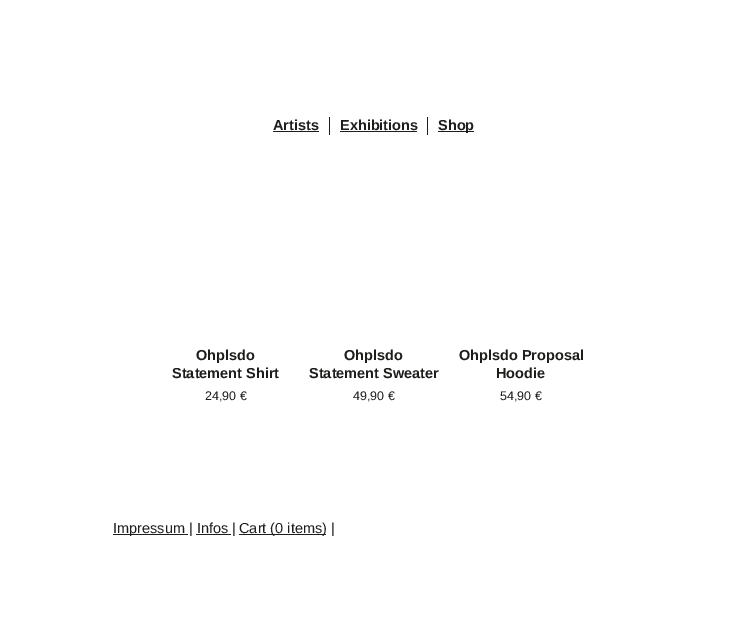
%!PS
<< /PageSize [747 625] >> setpagedevice
/rgb { dup -16 bitshift 255 div exch dup -8 bitshift 255 and 255 div exch 255 and 255 div setrgbcolor } def
/font { [ exch dup neg 0 0 3 -1 roll 0 0 ] selectfont } def
/text { moveto show } def
0 625 translate 1 -1 scale
4 setmiterlimit
/s1 { /LiberationSans-Bold 14.5 font 16#1D1D1B rgb } def
/s2 { /LiberationSans-Regular 12.5 font 16#1D1D1B rgb } def
/s3 { /LiberationSans-Regular 14.5 font 16#1D1D1B rgb } def
16#FFFFFF rgb
0 0 747 625 rectfill
s1
(Artists) 273 130 text
273 131 46 1 rectfill
329 117 1 18 rectfill
(Exhibitions) 340 130 text
340 131 77 1 rectfill
427 117 1 18 rectfill
438 131 36 1 rectfill
(Shop) 438 130 text
(Ohplsdo) 196 360 text
(Statement Shirt) 172 378 text
s2
(24,90 €) 205 400 text
s1
(Ohplsdo) 344 360 text
(Statement Sweater) 309 378 text
s2
(49,90 €) 353 400 text
s1
(Ohplsdo Proposal) 459 360 text
(Hoodie) 496 378 text
s2
(54,90 €) 500 400 text
113 534 75 1 rectfill
s3
(Impressum | Infos |) 113 533 text
239 534 87 1 rectfill
(Cart \(0 items\) |) 239 533 text
196 534 35 1 rectfill
showpage
